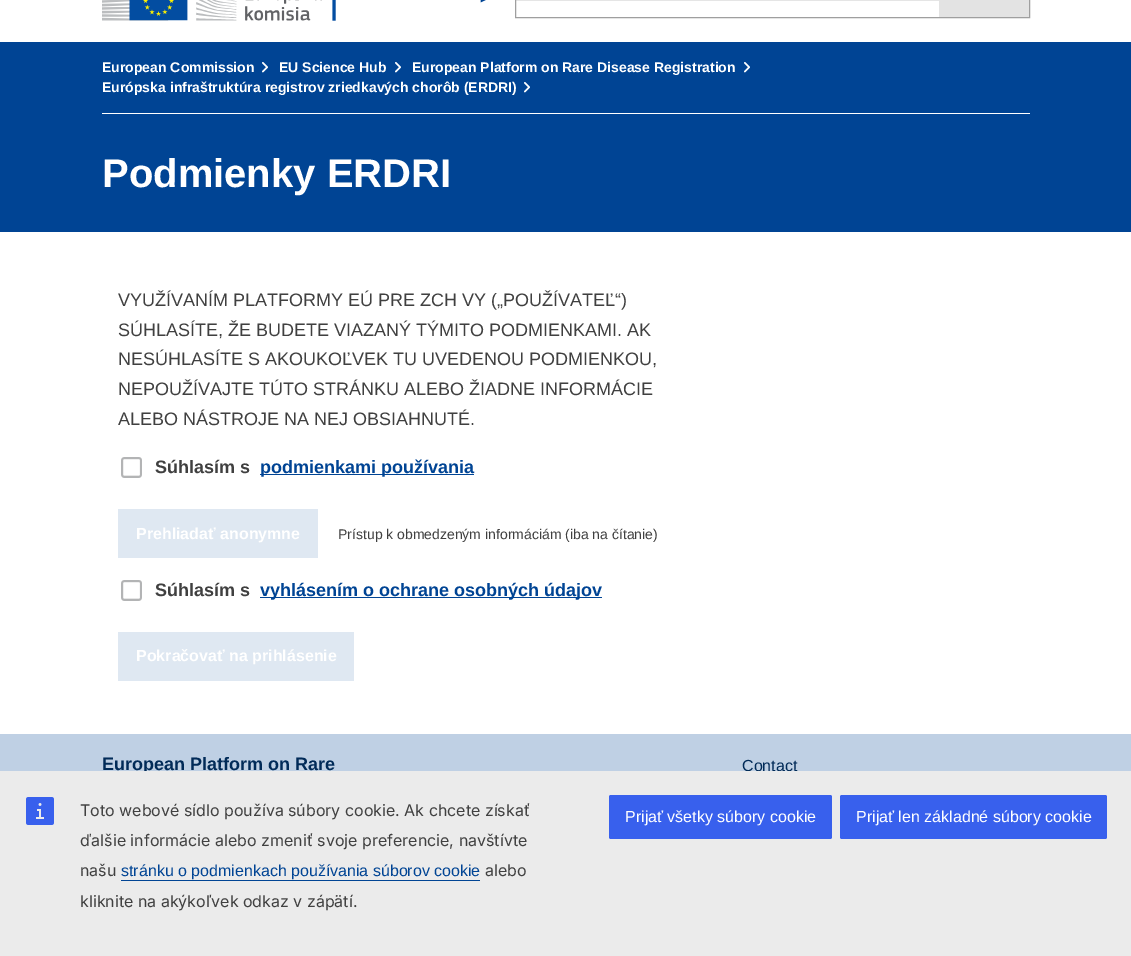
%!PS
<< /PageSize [1131 956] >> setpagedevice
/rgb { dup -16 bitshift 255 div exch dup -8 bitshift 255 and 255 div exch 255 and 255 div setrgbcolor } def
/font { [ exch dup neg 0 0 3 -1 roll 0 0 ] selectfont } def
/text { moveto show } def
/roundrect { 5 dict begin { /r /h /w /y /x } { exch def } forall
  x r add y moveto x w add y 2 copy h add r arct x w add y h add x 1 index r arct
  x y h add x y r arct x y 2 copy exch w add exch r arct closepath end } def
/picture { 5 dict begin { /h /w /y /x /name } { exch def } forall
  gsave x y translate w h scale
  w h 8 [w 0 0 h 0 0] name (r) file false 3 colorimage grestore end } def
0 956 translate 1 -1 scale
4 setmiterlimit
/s1 { /LiberationSans-Bold 14 font 16#FFFFFF rgb } def
/s2 { /LiberationSans-Bold 40 font 16#FFFFFF rgb } def
/s3 { /LiberationSans-Regular 18 font 16#404040 rgb } def
/s4 { /LiberationSans-Bold 18 font 16#404040 rgb } def
/s5 { /LiberationSans-Bold 18 font 16#004494 rgb } def
/s6 { /LiberationSans-Bold 16 font 16#FFFFFF rgb } def
/s7 { /LiberationSans-Regular 14 font 16#404040 rgb } def
/s8 { /LiberationSans-Bold 18 font 16#012B58 rgb } def
/s9 { /LiberationSans-Regular 16 font 16#012B58 rgb } def
/s10 { /Inter-Regular 16 font 16#404040 rgb } def
/s11 { /LiberationSans-Regular 16 font 16#004494 rgb } def
/s12 { /LiberationSans-Regular 16 font 16#FFFFFF rgb } def
16#FFFFFF rgb
0 0 1131 956 rectfill
(pic1.raw) 102 0 234 21 picture
(pic2.raw) 480 0 6 3 picture
16#9F9F9F rgb
515.5 -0.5 514 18 rectstroke
16#E3E3E3 rgb
939 0 90 17 rectfill
16#004494 rgb
0 42 1131 190 rectfill
16#FFFFFF rgb
102 113 928 1 rectfill
s1
(European Commission) 102 72 text
(pic3.raw) 262 62 6 11 picture
(EU Science Hub) 279 72 text
(pic3.raw) 395 62 6 11 picture
(European Platform on Rare Disease Registration) 412 72 text
(pic3.raw) 744 62 6 11 picture
(Európska infraštruktúra registrov zriedkavých chorôb \(ERDRI\)) 102 92 text
(pic3.raw) 524 82 6 11 picture
s2
(Podmienky ERDRI) 102 187 text
s3
(VYUŽÍVANÍM PLATFORMY EÚ PRE ZCH VY \(„POUŽÍVATEĽ“\)) 118 306 text
(SÚHLASÍTE, ŽE BUDETE VIAZANÝ TÝMITO PODMIENKAMI. AK) 118 336 text
(NESÚHLASÍTE S AKOUKOĽVEK TU UVEDENOU PODMIENKOU,) 118 365 text
(NEPOUŽÍVAJTE TÚTO STRÁNKU ALEBO ŽIADNE INFORMÁCIE) 118 395 text
(ALEBO NÁSTROJE NA NEJ OBSIAHNUTÉ.) 118 425 text
(pic4.raw) 121 457 21 21 picture
s4
(Súhlasím s) 155 473 text
16#004494 rgb
260 474 214 1 rectfill
(podmienkami používania) 260 473 text
16#DFE8F2 rgb
118 509 200 49 rectfill
s6
(Prehliadať anonymne) 136 539 text
s7
(Prístup k obmedzeným informáciám \(iba na čítanie\)) 338 539 text
(pic4.raw) 121 580 21 21 picture
s4
(Súhlasím s) 155 596 text
16#004494 rgb
260 597 342 1 rectfill
(vyhlásením o ochrane osobných údajov) 260 596 text
16#DFE8F2 rgb
118 632 236 49 rectfill
s6
(Pokračovať na prihlásenie) 136 661 text
16#BFD0E4 rgb
0 734 1131 37 rectfill
s8
(European Platform on Rare) 102 770 text
s9
(Contact) 742 771 text
16#EBEBEB rgb
0 771 1131 185 rectfill
(pic5.raw) 26 797 28 28 picture
s10
(Toto webové sídlo používa súbory cookie. Ak chcete získať) 80 816 text
(ďalšie informácie alebo zmeniť svoje preferencie, navštívte) 80 846 text
(našu) 80 876 text
s11
(stránku o podmienkach používania súborov cookie) 121 876 text
121 880 359 1 rectfill
s10
(alebo) 485 876 text
(kliknite na akýkoľvek odkaz v zápätí.) 80 907 text
16#3860ED rgb
609 795 223 44 2 roundrect fill
s12
(Prijať všetky súbory cookie) 625 822 text
16#3860ED rgb
840 795 267 44 2 roundrect fill
s12
(Prijať len základné súbory cookie) 856 822 text
showpage
